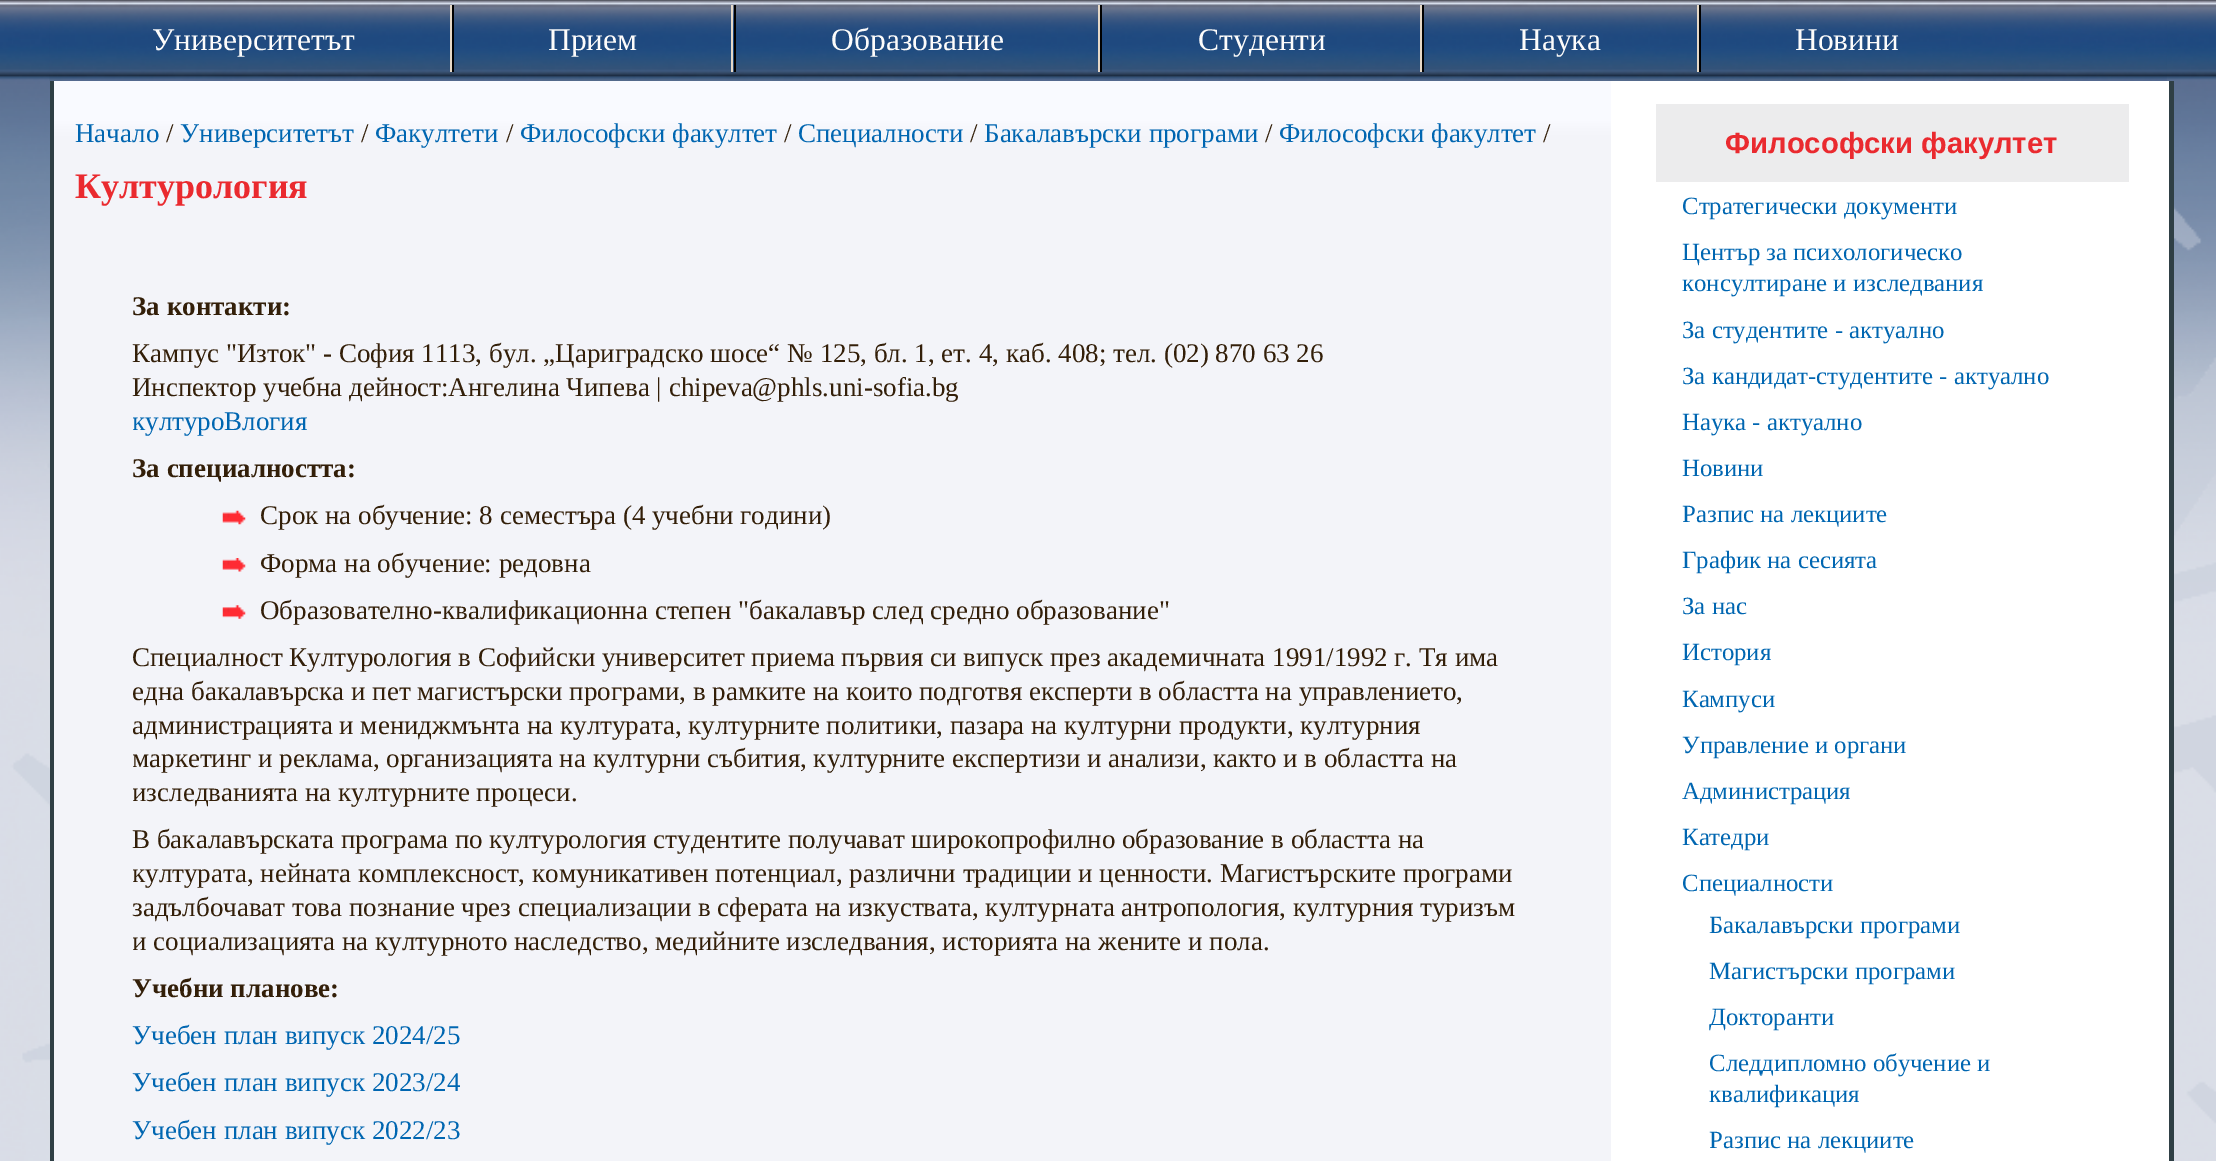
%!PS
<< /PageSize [2216 1161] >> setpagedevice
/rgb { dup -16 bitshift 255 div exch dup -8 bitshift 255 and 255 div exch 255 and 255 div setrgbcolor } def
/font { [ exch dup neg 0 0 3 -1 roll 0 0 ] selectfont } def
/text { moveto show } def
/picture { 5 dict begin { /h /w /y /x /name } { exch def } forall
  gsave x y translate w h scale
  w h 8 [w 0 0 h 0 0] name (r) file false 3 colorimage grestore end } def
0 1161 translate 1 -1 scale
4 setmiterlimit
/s1 { /LiberationSerif-Regular 31.5 font 16#FDFCFB rgb } def
/s2 { /LiberationSerif-Regular 27 font 16#0066B1 rgb } def
/s3 { /LiberationSerif-Regular 27 font 16#331F09 rgb } def
/s4 { /LiberationSerif-Bold 36 font 16#EA2A2F rgb } def
/s5 { /LiberationSerif-Bold 27 font 16#331F09 rgb } def
/s6 { /LiberationSans-Bold 29.25 font 16#EA2A2F rgb } def
/s7 { /LiberationSerif-Regular 24.75 font 16#0066B1 rgb } def
16#FFFFFF rgb
0 0 2216 1161 rectfill
(pic1.raw) 0 0 2216 1161 picture
(pic2.raw) 49 0 2118 81 picture
16#E5D8C7 rgb
450 5 2 67 rectfill
s1
(Университетът) 152 50 text
16#E5D8C7 rgb
731 5 2 67 rectfill
16#000000 rgb
452 5 2 67 rectfill
s1
(Прием) 548 50 text
16#E5D8C7 rgb
1098 5 2 67 rectfill
16#000000 rgb
734 5 2 67 rectfill
s1
(Образование) 831 50 text
16#E5D8C7 rgb
1420 5 2 67 rectfill
16#000000 rgb
1100 5 2 67 rectfill
s1
(Студенти) 1198 50 text
16#E5D8C7 rgb
1697 5 2 67 rectfill
16#000000 rgb
1422 5 2 67 rectfill
s1
(Наука) 1519 50 text
16#000000 rgb
1699 5 2 67 rectfill
s1
(Новини) 1795 50 text
16#FFFFFF rgb
1611 81 558 1080 rectfill
16#2F3F45 rgb
2169 81 5 1080 rectfill
50 81 4 1080 rectfill
gsave 54 81 moveto 1611 81 lineto 1611 1161 lineto 54 1161 lineto closepath clip newpath
<< /ShadingType 2 /ColorSpace /DeviceRGB /Coords [832 81 833 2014] /Extend [true true] /Function << /FunctionType 3 /Domain [0 1] /Functions [<< /FunctionType 2 /Domain [0 1] /C0 [0.976 0.98 1] /C1 [0.976 0.98 1] /N 1 >> << /FunctionType 2 /Domain [0 1] /C0 [0.976 0.98 1] /C1 [0.953 0.957 0.976] /N 1 >> << /FunctionType 2 /Domain [0 1] /C0 [0.953 0.957 0.976] /C1 [0.953 0.957 0.976] /N 1 >>] /Bounds [0.02 0.03] /Encode [0 1 0 1 0 1] >> >> shfill grestore
s2
(Начало) 75 142 text
s3
(/) 166 142 text
s2
(Университетът) 180 142 text
s3
(/) 361 142 text
s2
(Факултети) 375 142 text
s3
(/) 506 142 text
s2
(Философски факултет) 520 142 text
s3
(/) 784 142 text
s2
(Специалности) 798 142 text
s3
(/) 970 142 text
s2
(Бакалавърски програми) 984 142 text
s3
(/) 1265 142 text
s2
(Философски факултет) 1279 142 text
s3
(/) 1543 142 text
s4
(Културология) 75 198 text
s5
(За контакти:) 132 315 text
s3
(Кампус "Изток" - София 1113, бул. „Цариградско шосе“ № 125, бл. 1, ет. 4, каб. 408; тел. \(02\) 870 63 26) 132 362 text
(Инспектор учебна дейност:Ангелина Чипева | chipeva@phls.uni-sofia.bg) 132 396 text
gsave
133 277 1402 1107 rectclip
s2
(културоВлогия) 132 430 text
grestore
s5
(За специалността:) 132 477 text
(pic3.raw) 222 510 24 15 picture
s3
(Срок на обучение: 8 семестъра \(4 учебни години\)) 260 524 text
(pic4.raw) 222 558 24 14 picture
(Форма на обучение: редовна) 260 572 text
(pic5.raw) 222 605 24 14 picture
(Образователно-квалификационна степен "бакалавър след средно образование") 260 619 text
gsave
133 277 1402 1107 rectclip
(Специалност Културология в Софийски университет приема първия си випуск през академичната 1991/1992 г. Тя има) 132 666 text
(една бакалавърска и пет магистърски програми, в рамките на които подготвя експерти в областта на управлението,) 132 700 text
(администрацията и мениджмънта на културата, културните политики, пазара на културни продукти, културния) 132 734 text
(маркетинг и реклама, организацията на културни събития, културните експертизи и анализи, както и в областта на) 132 767 text
(изследванията на културните процеси.) 132 801 text
grestore
(В бакалавърската програма по културология студентите получават широкопрофилно образование в областта на) 132 848 text
gsave
133 277 1402 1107 rectclip
(културата, нейната комплексност, комуникативен потенциал, различни традиции и ценности. Магистърските програми) 132 882 text
grestore
(задълбочават това познание чрез специализации в сферата на изкуствата, културната антропология, културния туризъм) 132 916 text
gsave
133 277 1402 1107 rectclip
(и социализацията на културното наследство, медийните изследвания, историята на жените и пола.) 132 950 text
grestore
s5
(Учебни планове:) 132 997 text
s2
(Учебен план випуск 2024/25) 132 1044 text
(Учебен план випуск 2023/24) 132 1091 text
(Учебен план випуск 2022/23) 132 1139 text
16#ECECED rgb
1656 104 473 78 rectfill
s6
(Философски факултет) 1725 153 text
s7
(Стратегически документи) 1682 214 text
(Център за психологическо) 1682 260 text
(консултиране и изследвания) 1682 291 text
(За студентите - актуално) 1682 338 text
(За кандидат-студентите - актуално) 1682 384 text
(Наука - актуално) 1682 430 text
(Новини) 1682 476 text
(Разпис на лекциите) 1682 522 text
(График на сесията) 1682 568 text
(За нас) 1682 614 text
(История) 1682 660 text
(Кампуси) 1682 707 text
(Управление и органи) 1682 753 text
(Администрация) 1682 799 text
(Катедри) 1682 845 text
(Специалности) 1682 891 text
(Бакалавърски програми) 1709 933 text
(Магистърски програми) 1709 979 text
(Докторанти) 1709 1025 text
(Следдипломно обучение и) 1709 1071 text
(квалификация) 1709 1102 text
(Разпис на лекциите) 1709 1148 text
showpage
